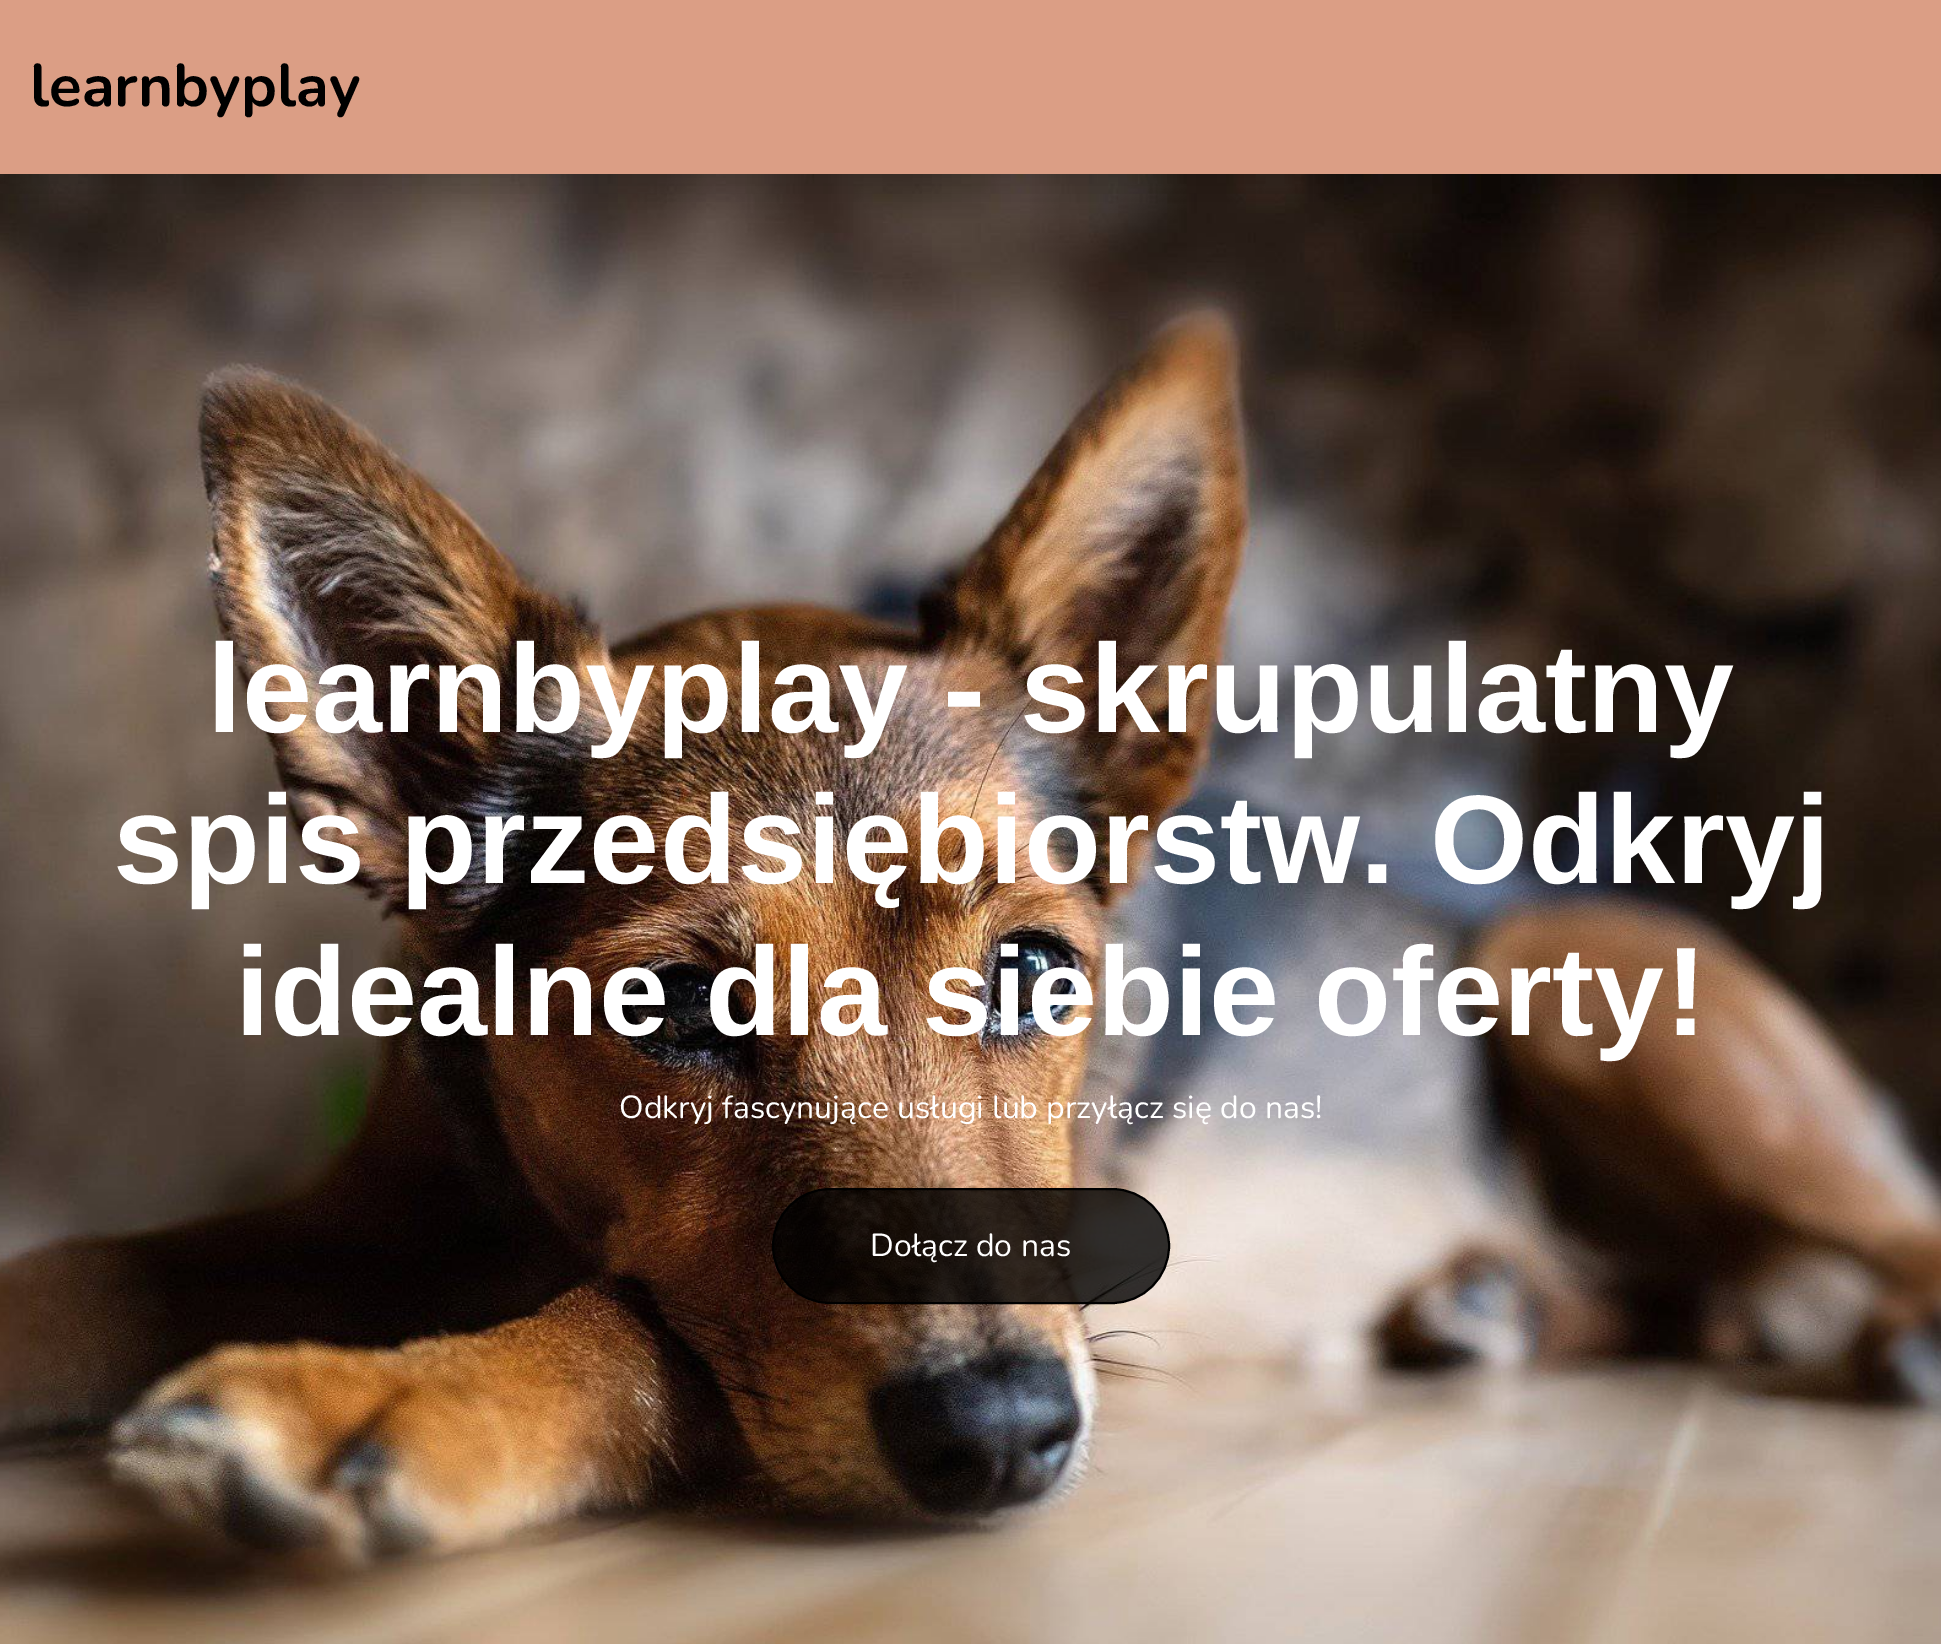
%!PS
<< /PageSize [1941 1644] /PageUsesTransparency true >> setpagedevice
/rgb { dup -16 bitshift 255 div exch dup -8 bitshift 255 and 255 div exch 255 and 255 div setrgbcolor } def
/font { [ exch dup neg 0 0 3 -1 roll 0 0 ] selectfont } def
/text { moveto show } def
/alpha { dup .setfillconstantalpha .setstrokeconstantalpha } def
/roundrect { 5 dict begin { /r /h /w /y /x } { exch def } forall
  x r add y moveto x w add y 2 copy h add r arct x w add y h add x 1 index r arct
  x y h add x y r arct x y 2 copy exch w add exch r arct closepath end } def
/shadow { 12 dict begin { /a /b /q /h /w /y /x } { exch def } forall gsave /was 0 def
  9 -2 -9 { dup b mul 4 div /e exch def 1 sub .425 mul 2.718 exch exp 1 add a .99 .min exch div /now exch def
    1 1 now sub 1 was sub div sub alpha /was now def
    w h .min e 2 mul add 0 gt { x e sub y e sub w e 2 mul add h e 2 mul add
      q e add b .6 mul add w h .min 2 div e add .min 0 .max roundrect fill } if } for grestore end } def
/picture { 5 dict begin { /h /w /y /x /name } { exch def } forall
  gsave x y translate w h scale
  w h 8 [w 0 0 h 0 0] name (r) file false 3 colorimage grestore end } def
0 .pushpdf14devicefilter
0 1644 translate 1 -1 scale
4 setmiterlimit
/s1 { /Nunito-Bold 60 font 16#000000 rgb } def
/s2 { /LiberationSans-Bold 126.1 font 16#FFFFFF rgb } def
/s3 { /Nunito-Regular 32 font 16#FFFFFF rgb } def
16#FFFFFF rgb
0 0 1941 1644 rectfill
(pic1.raw) 0 174 1941 1470 picture
16#000000 rgb
0 16 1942 174 0 16 0.15 shadow
16#DB9E85 rgb
0 0 1941 174 rectfill
s1
(learnbyplay) 30 106 text
s2
(learnbyplay - skrupulatny) 207 732 text
(spis przedsiębiorstw. Odkryj) 113 883 text
(idealne dla siebie oferty!) 235 1035 text
s3
(Odkryj fascynujące usługi lub przyłącz się do nas!) 619 1118 text
0.8 alpha
16#000000 rgb
773 1189 396 114 57 roundrect fill
1 alpha
2 setlinewidth
773 1189 396 114 57 roundrect stroke
s3
(Dołącz do nas) 870 1256 text
.poppdf14devicefilter showpage
